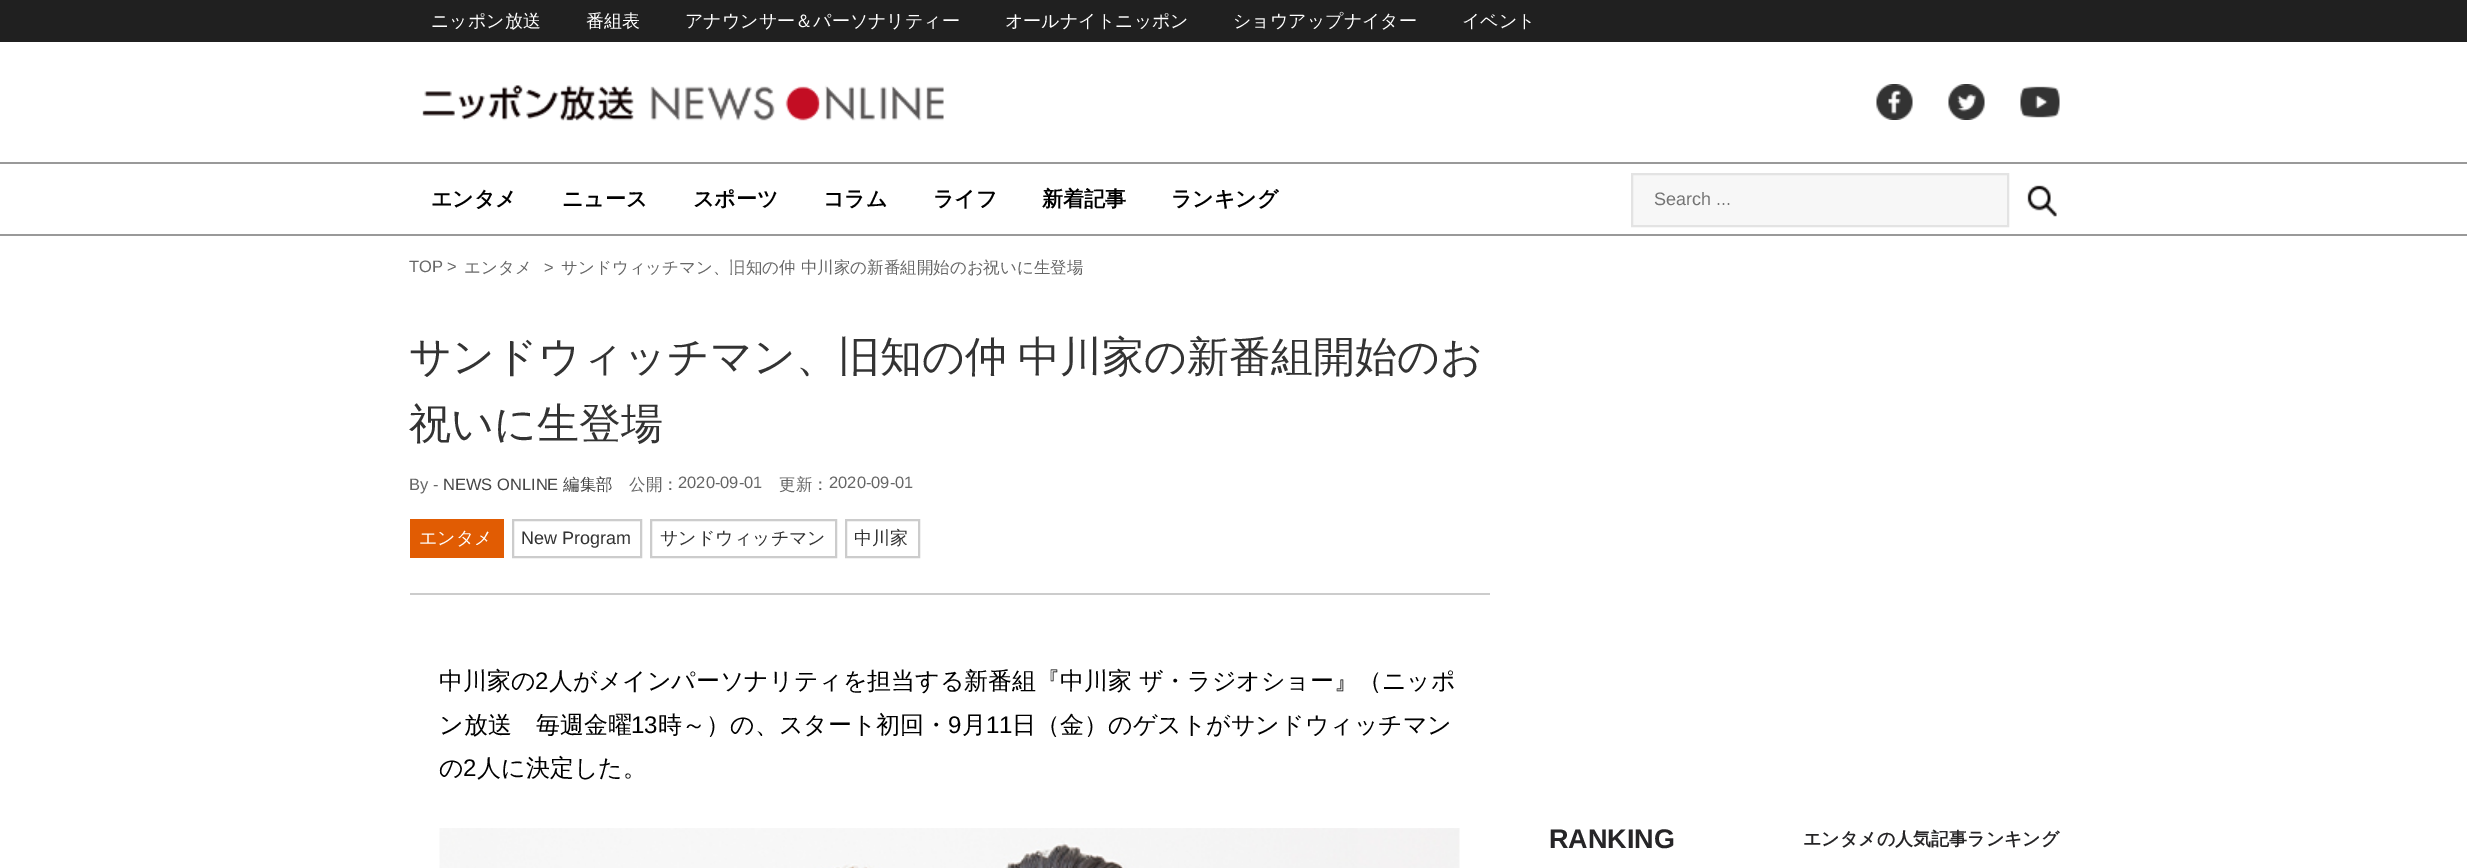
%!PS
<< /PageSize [2467 868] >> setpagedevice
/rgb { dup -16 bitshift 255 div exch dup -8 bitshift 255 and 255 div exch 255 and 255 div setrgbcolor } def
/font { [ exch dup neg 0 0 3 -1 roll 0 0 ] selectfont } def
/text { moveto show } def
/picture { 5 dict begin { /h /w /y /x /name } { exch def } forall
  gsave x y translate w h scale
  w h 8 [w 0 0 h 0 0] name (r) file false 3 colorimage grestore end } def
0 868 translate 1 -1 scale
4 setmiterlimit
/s1 { /WenQuanYiZenHei-Medium 18 font 16#FFFFFF rgb } def
/s2 { /WenQuanYiZenHei-Bold 21 font 16#000000 rgb } def
/s3 { /LiberationSans-Regular 18 font 16#757575 rgb } def
/s4 { /LiberationSans-Regular 16.5 font 16#666666 rgb } def
/s5 { /WenQuanYiZenHei-Medium 16.5 font 16#666666 rgb } def
/s6 { /WenQuanYiZenHei-Medium 42 font 16#333333 rgb } def
/s7 { /LiberationSans-Regular 16.5 font 16#444444 rgb } def
/s8 { /WenQuanYiZenHei-Medium 16.5 font 16#444444 rgb } def
/s9 { /LiberationSans-Regular 18 font 16#333333 rgb } def
/s10 { /WenQuanYiZenHei-Medium 18 font 16#333333 rgb } def
/s11 { /WenQuanYiZenHei-Medium 24 font 16#000000 rgb } def
/s12 { /LiberationSans-Regular 24 font 16#000000 rgb } def
/s13 { /LiberationSans-Bold 27 font 16#262527 rgb } def
/s14 { /WenQuanYiZenHei-Bold 18 font 16#262527 rgb } def
16#FFFFFF rgb
0 0 2467 868 rectfill
16#202020 rgb
0 0 2467 42 rectfill
s1
(ニッポン放送) 431 27 text
(番組表) 586 27 text
(アナウンサー＆パーソナリティー) 685 27 text
(オールナイトニッポン) 1005 27 text
(ショウアップナイター) 1233 27 text
(イベント) 1462 27 text
(pic1.raw) 422 85 522 36 picture
(pic2.raw) 1876 84 37 36 picture
(pic3.raw) 1948 84 37 36 picture
(pic4.raw) 2020 86 40 32 picture
16#999999 rgb
0 162 2467 2 rectfill
0 234 2467 2 rectfill
s2
(エンタメ) 431 206 text
(ニュース) 562 206 text
(スポーツ) 693 206 text
(コラム) 823 206 text
(ライフ) 933 206 text
(新着記事) 1042 206 text
(ランキング) 1171 206 text
16#F7F7F7 rgb
1632 174 moveto 2008 174 lineto 2008 226 lineto 1632 226 lineto closepath gsave fill grestore
16#E3E3E3 rgb
2 setlinewidth
stroke
s3
(Search ...) 1654 205 text
(pic5.raw) 2027 185 30 32 picture
s4
(TOP >) 409 272 text
s5
(エンタメ) 464 273 text
s4
(>) 544 273 text
s5
(サンドウィッチマン、旧知の仲 中川家の新番組開始のお祝いに生登場) 561 273 text
16#CCCCCC rgb
410 593 1080 2 rectfill
/WenQuanYiZenHei-Medium 42 font
16#333333 rgb
409 371 moveto -1 0 32 (サンドウィッチマン、旧知の仲 中川家の新番組開始のお) widthshow
(祝いに生登場) 409 438 text
s4
(By -) 409 490 text
s7
(NEWS ONLINE) 443 490 text
s8
(編集部) 563 490 text
s5
(公開：) 629 490 text
s4
(2020-09-01) 678 488 text
s5
(更新：) 779 490 text
s4
(2020-09-01) 829 488 text
16#E15C03 rgb
410 519 94 39 rectfill
s1
(エンタメ) 419 544 text
16#CCCCCC rgb
513 520 128 37 rectstroke
s9
(New Program) 521 544 text
16#CCCCCC rgb
651 520 185 37 rectstroke
s10
(サンドウィッチマン) 660 544 text
16#CCCCCC rgb
846 520 73 37 rectstroke
s10
(中川家) 854 544 text
s11
(中川家の) 439 689 text
s12
(2) 535 689 text
/WenQuanYiZenHei-Medium 24 font
549 689 moveto -1 0 32 (人がメインパーソナリティを担当する新番組『中川家 ザ・ラジオショー』（ニッポ) widthshow
(ン放送　毎週金曜) 439 733 text
s12
(13) 631 733 text
s11
(時～）の、スタート初回・) 658 733 text
s12
(9) 948 733 text
s11
(月) 962 733 text
s12
(11) 986 733 text
s11
(日（金）のゲストがサンドウィッチマン) 1012 733 text
(の) 439 776 text
s12
(2) 463 776 text
s11
(人に決定した。) 477 776 text
(pic6.raw) 439 828 1021 40 picture
s13
(RANKING) 1549 848 text
s14
(エンタメの人気記事ランキング) 1803 845 text
showpage
